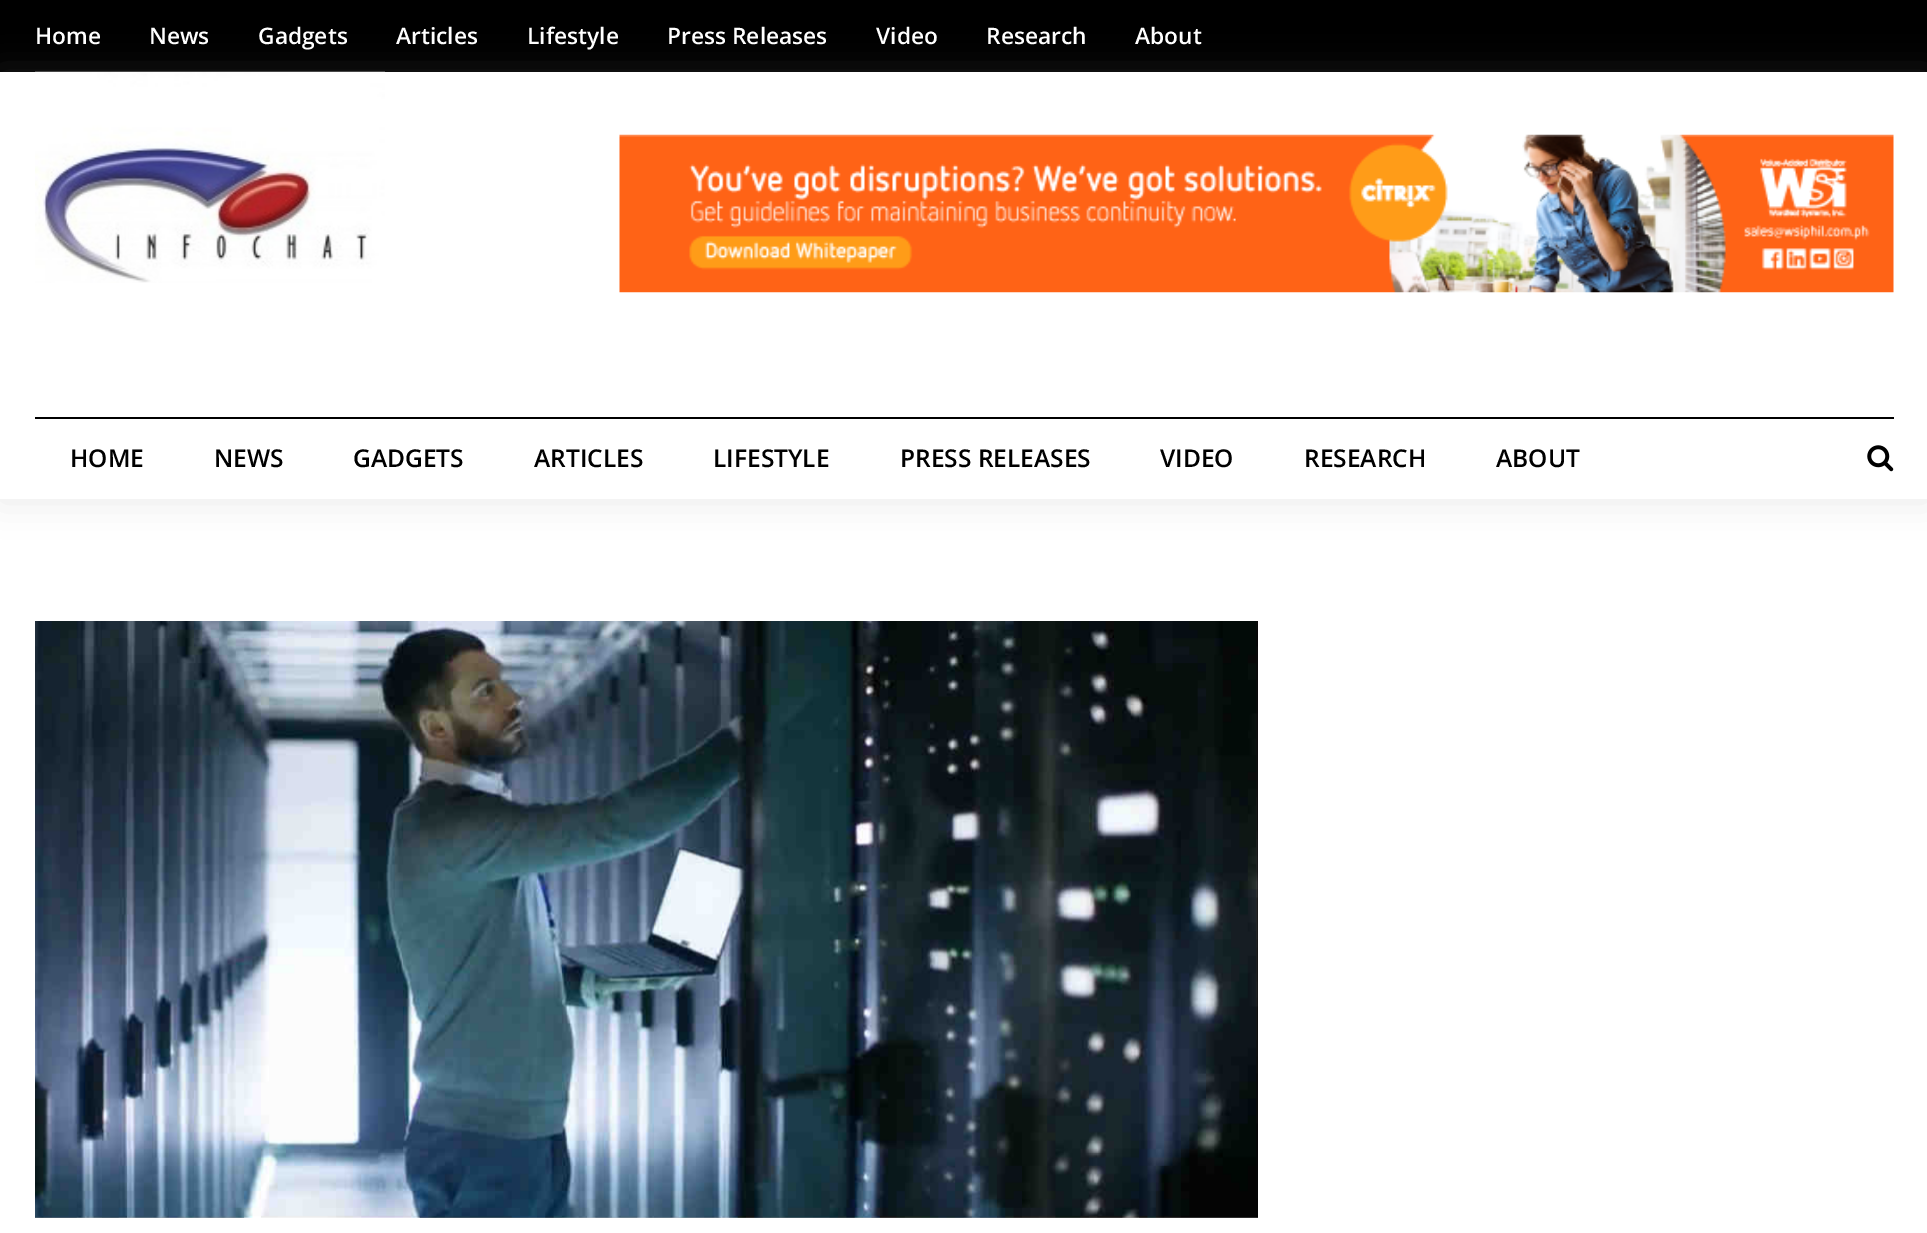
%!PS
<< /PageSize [1927 1233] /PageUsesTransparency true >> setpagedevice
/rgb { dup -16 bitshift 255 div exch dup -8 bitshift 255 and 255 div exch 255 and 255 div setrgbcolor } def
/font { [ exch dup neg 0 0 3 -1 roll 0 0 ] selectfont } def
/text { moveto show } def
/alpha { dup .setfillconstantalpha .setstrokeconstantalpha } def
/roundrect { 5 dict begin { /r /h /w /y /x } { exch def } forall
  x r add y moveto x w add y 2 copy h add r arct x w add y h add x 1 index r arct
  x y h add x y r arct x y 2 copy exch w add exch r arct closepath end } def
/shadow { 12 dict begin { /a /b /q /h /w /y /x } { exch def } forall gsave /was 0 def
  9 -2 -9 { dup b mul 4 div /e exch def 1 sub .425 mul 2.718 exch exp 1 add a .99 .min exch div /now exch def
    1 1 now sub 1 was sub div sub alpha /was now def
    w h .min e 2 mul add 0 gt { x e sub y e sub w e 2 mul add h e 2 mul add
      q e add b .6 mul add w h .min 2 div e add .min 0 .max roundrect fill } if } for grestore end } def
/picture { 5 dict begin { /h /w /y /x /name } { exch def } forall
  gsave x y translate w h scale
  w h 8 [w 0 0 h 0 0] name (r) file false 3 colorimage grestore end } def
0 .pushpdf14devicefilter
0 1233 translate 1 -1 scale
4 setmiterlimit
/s1 { /OpenSans-SemiBold 22.75 font 16#FFFFFF rgb } def
/s2 { /OpenSans-SemiBold 24.5 font 16#000000 rgb } def
16#FFFFFF rgb
0 0 1927 1233 rectfill
16#000000 rgb
0 0 1927 72 rectfill
gsave
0 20 moveto 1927 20 lineto 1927 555 lineto 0 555 lineto closepath 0 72 moveto 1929 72 lineto 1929 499 lineto 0 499 lineto closepath eoclip newpath
16#999999 rgb
0 74 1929 427 0 17.5 0.2 shadow
grestore
s1
(Home) 35 44 text
(News) 149 44 text
(Gadgets) 258 44 text
(Articles) 396 44 text
(Lifestyle) 527 44 text
(Press Releases) 667 44 text
(Video) 876 44 text
(Research) 986 44 text
(About) 1135 44 text
(pic1.raw) 35 71 350 212 picture
(pic2.raw) 619 134 1275 159 picture
16#000000 rgb
35 417 1859 2 rectfill
s2
(HOME) 70 467 text
(NEWS) 214 467 text
(GADGETS) 353 467 text
(ARTICLES) 534 467 text
(LIFESTYLE) 713 467 text
(PRESS RELEASES) 900 467 text
(VIDEO) 1160 467 text
(RESEARCH) 1304 467 text
(ABOUT) 1496 467 text
(pic3.raw) 1867 445 27 27 picture
(pic4.raw) 35 621 1223 597 picture
.poppdf14devicefilter showpage
